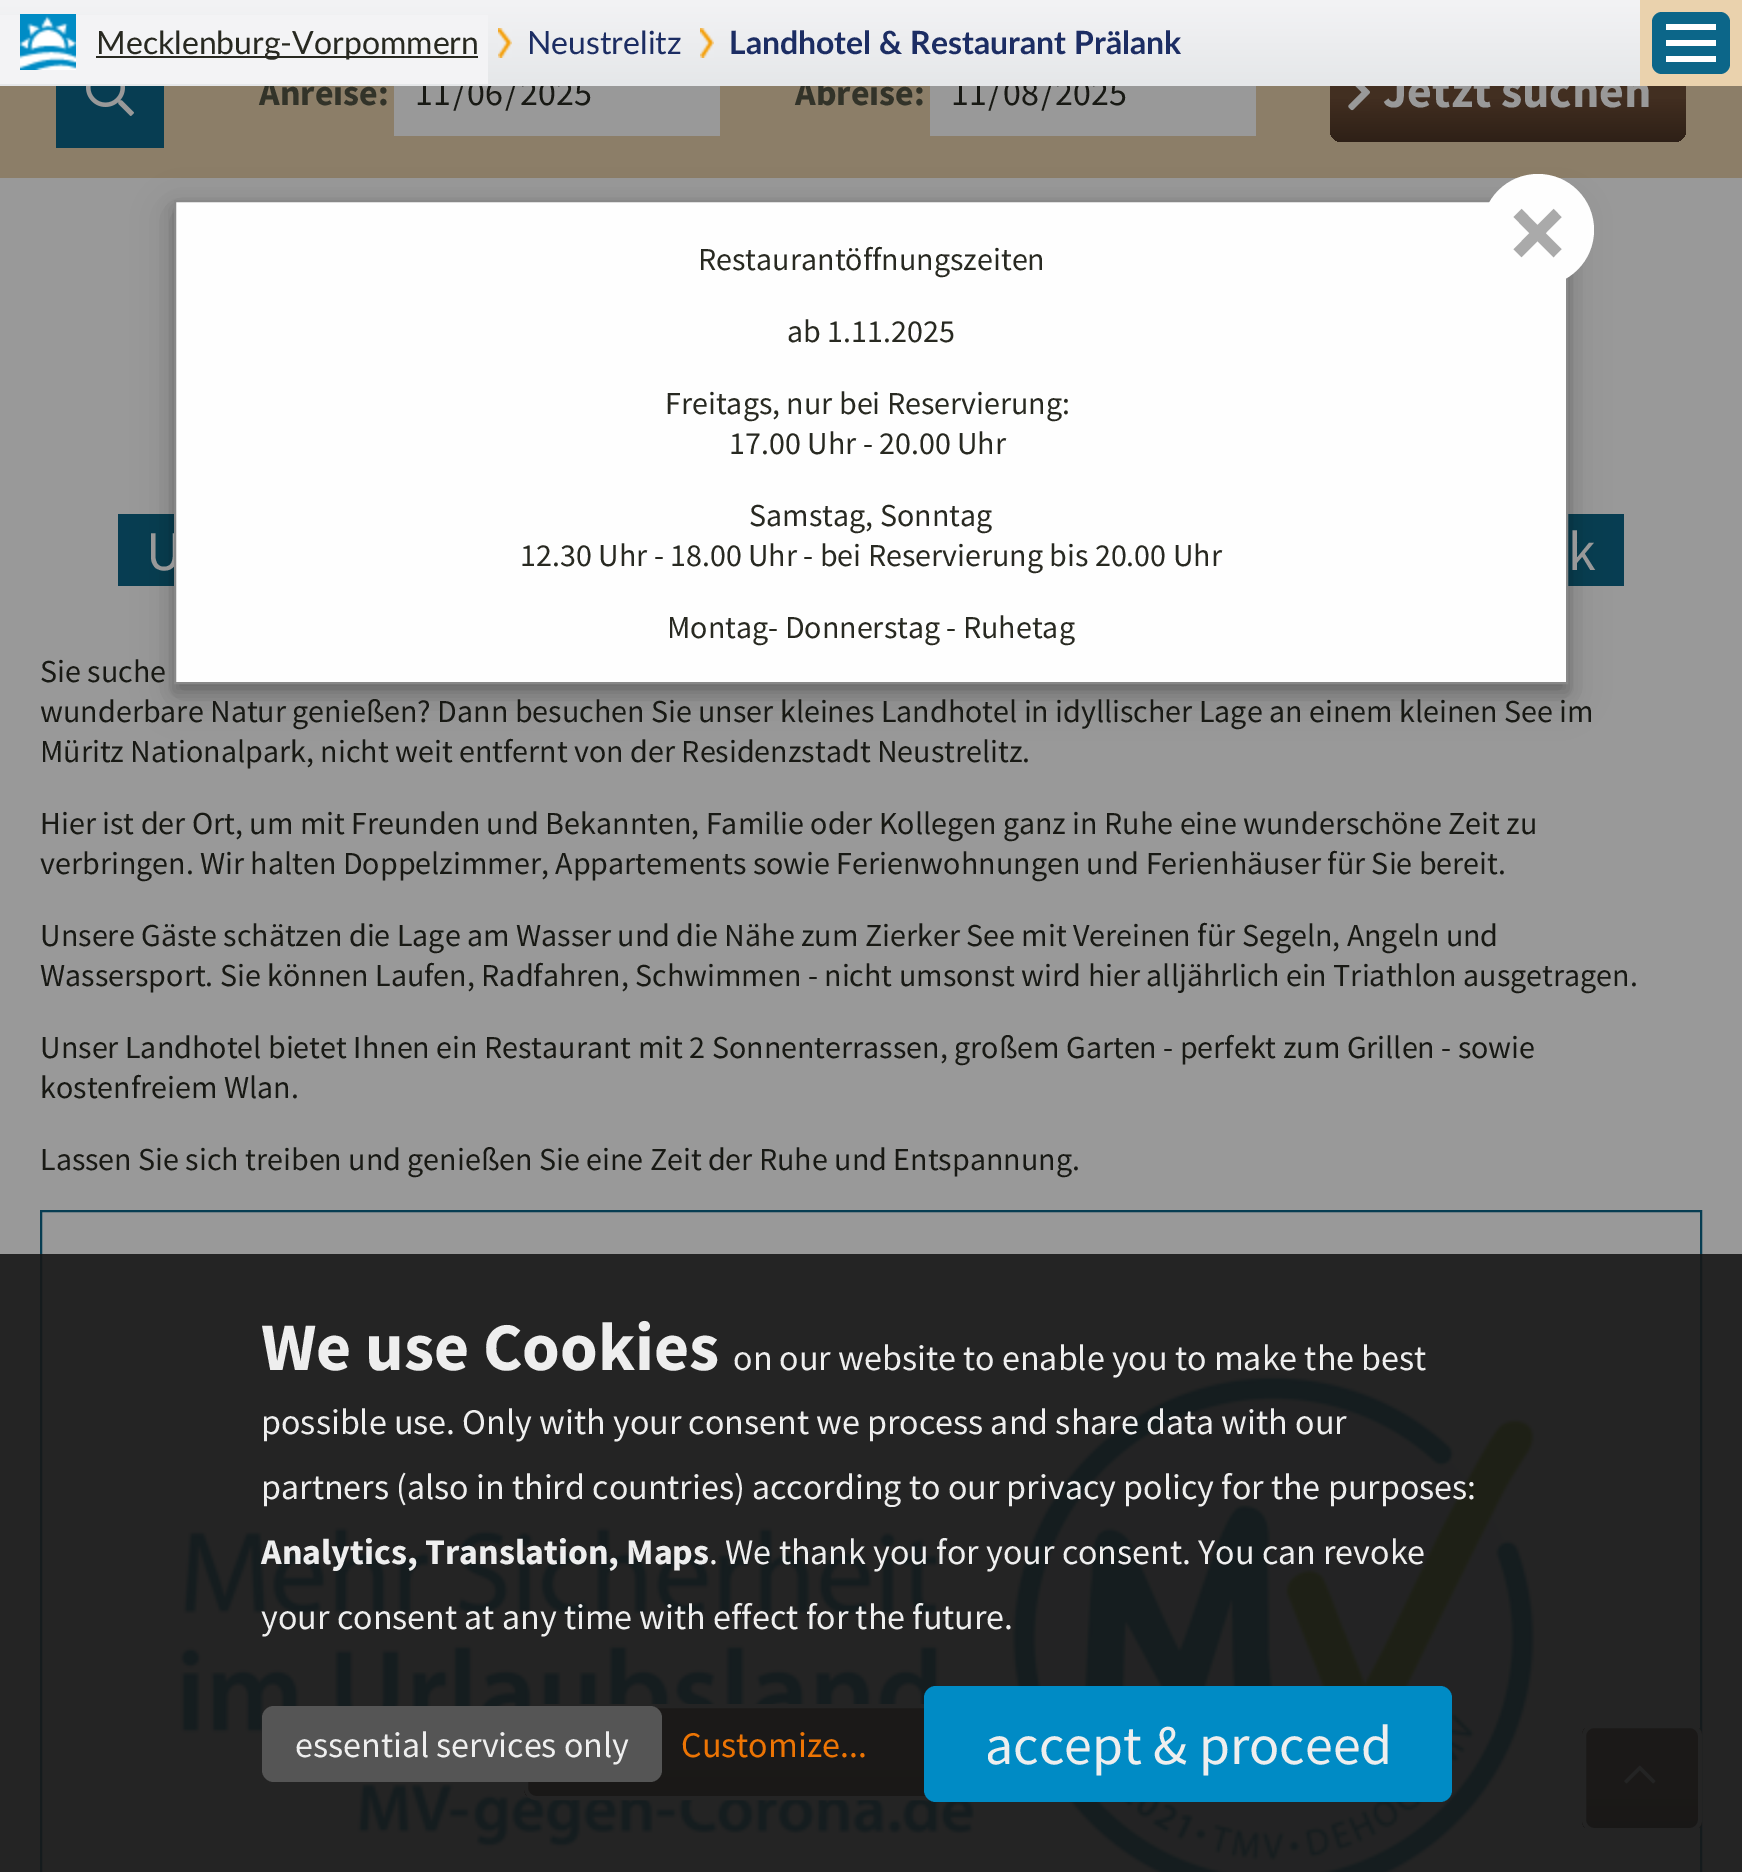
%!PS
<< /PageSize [1742 1872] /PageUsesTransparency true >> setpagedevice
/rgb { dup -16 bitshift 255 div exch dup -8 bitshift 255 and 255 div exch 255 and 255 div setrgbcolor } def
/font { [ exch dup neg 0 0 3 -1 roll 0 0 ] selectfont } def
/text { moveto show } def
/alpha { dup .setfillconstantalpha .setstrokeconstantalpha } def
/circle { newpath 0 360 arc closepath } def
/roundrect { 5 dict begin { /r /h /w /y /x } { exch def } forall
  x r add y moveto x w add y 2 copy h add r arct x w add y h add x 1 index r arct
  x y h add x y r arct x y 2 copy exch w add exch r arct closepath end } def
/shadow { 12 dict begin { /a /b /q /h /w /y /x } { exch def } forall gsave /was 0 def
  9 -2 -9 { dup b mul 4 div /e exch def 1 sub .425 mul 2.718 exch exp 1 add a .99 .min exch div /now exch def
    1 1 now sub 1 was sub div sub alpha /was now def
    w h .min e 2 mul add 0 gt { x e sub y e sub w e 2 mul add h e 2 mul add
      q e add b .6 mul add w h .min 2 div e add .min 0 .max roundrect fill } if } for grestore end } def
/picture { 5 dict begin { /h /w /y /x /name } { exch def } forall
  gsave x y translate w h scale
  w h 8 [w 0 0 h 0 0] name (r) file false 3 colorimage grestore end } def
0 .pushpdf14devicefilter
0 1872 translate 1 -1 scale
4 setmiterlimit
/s1 { /SourceSansPro-Bold 36 font 16#323329 rgb } def
/s2 { /SourceSansPro-Regular 36 font 16#181914 rgb } def
/s3 { /SourceSansPro-Bold 48 font 16#999999 rgb } def
/s4 { /Lato-Regular 32 font 16#282921 rgb } def
/s5 { /Lato-Regular 32 font 16#1C2D63 rgb } def
/s6 { /Lato-Bold 32 font 16#1C2D63 rgb } def
/s7 { /SourceSansPro-Regular 56 font 16#999999 rgb } def
/s8 { /SourceSansPro-Bold 112 font 16#AAAAAA rgb } def
/s9 { /SourceSansPro-Regular 32 font 16#282921 rgb } def
/s10 { /SourceSansPro-Regular 32 font 16#181914 rgb } def
/s11 { /SourceSansPro-Bold 68 font 16#EEEEEE rgb } def
/s12 { /SourceSansPro-Regular 36 font 16#EEEEEE rgb } def
/s13 { /SourceSansPro-Bold 36 font 16#EEEEEE rgb } def
/s14 { /SourceSansPro-Regular 36 font 16#EC7404 rgb } def
/s15 { /SourceSansPro-Regular 56 font 16#EEEEEE rgb } def
16#999999 rgb
0 0 1742 1872 rectfill
16#8C7E68 rgb
0 86 1742 92 rectfill
s1
(Anreise:) 259 105 text
16#999999 rgb
394 86 326 50 rectfill
s2
(11) 415 105 text
(/) 453 105 text
(06) 467 105 text
(/) 505 105 text
(2025) 520 105 text
s1
(Abreise:) 795 105 text
16#999999 rgb
930 86 326 50 rectfill
s2
(11) 951 105 text
(/) 988 105 text
(08) 1003 105 text
(/) 1041 105 text
(2025) 1055 105 text
gsave 1330 44 356 98 12 roundrect clip newpath
<< /ShadingType 2 /ColorSpace /DeviceRGB /Coords [1508 44 1508 142] /Extend [true true] /Function << /FunctionType 3 /Domain [0 1] /Functions [<< /FunctionType 2 /Domain [0 1] /C0 [0.259 0.184 0.129] /C1 [0.259 0.184 0.129] /N 1 >> << /FunctionType 2 /Domain [0 1] /C0 [0.259 0.184 0.129] /C1 [0.18 0.125 0.09] /N 1 >>] /Bounds [0.55] /Encode [0 1 0 1] >> >> shfill grestore
s3
(Jetzt suchen) 1383 107 text
gsave 0 0 moveto 1640 0 lineto 1640 86 lineto 0 86 lineto closepath clip newpath
<< /ShadingType 2 /ColorSpace /DeviceRGB /Coords [871 0 871 86] /Extend [true true] /Function << /FunctionType 2 /Domain [0 1] /C0 [0.953 0.953 0.961] /C1 [0.898 0.906 0.914] /N 1 >> >> shfill grestore
16#F3F3F5 rgb
0 15 488 69 rectfill
(pic1.raw) 20 14 56 56 picture
16#282921 rgb
96 56 382 2 rectfill
s4
(Mecklenburg-Vorpommern) 96 54 text
(pic2.raw) 498 28 14 30 picture
s5
(Neustrelitz) 527 54 text
(pic2.raw) 700 28 14 30 picture
s6
(Landhotel & Restaurant Prälank) 729 54 text
16#EAD2AD rgb
1640 0 102 86 rectfill
16#0C6689 rgb
1652 12 78 62 10 roundrect fill
16#FFFFFF rgb
1666 40 50 6 rectfill
1666 24 50 6 rectfill
1666 56 50 6 rectfill
16#073D52 rgb
56 86 108 62 rectfill
(pic3.raw) 86 86 48 30 picture
(pic4.raw) 1348 86 22 25 picture
118 514 1506 72 rectfill
16#000000 rgb
174 212 1394 484 0 20 0.19 shadow
174 208 1394 484 0 8 0.2 shadow
s7
(U) 146 570 text
16#FEFEFE rgb
175 201 moveto 1567 201 lineto 1567 683 lineto 175 683 lineto closepath gsave fill grestore
16#888888 rgb
2 setlinewidth
stroke
16#FEFEFE rgb
1538 230 56 circle fill
s8
(×) 1508 270 text
s9
(Restaurantöffnungszeiten) 698 270 text
(ab 1.11.2025) 787 342 text
(Freitags, nur bei Reservierung:) 665 414 text
(17.00 Uhr - 20.00 Uhr) 729 454 text
(Samstag, Sonntag) 749 526 text
(12.30 Uhr - 18.00 Uhr - bei Reservierung bis 20.00 Uhr) 520 566 text
(Montag- Donnerstag - Ruhetag) 667 638 text
s7
(k) 1568 570 text
s10
(Sie suche) 40 682 text
(wunderbare Natur genießen? Dann besuchen Sie unser kleines Landhotel in idyllischer Lage an einem kleinen See im) 40 722 text
(Müritz Nationalpark, nicht weit entfernt von der Residenzstadt Neustrelitz.) 40 762 text
(Hier ist der Ort, um mit Freunden und Bekannten, Familie oder Kollegen ganz in Ruhe eine wunderschöne Zeit zu) 40 834 text
(verbringen. Wir halten Doppelzimmer, Appartements sowie Ferienwohnungen und Ferienhäuser für Sie bereit.) 40 874 text
(Unsere Gäste schätzen die Lage am Wasser und die Nähe zum Zierker See mit Vereinen für Segeln, Angeln und) 40 946 text
(Wassersport. Sie können Laufen, Radfahren, Schwimmen - nicht umsonst wird hier alljährlich ein Triathlon ausgetragen.) 40 986 text
(Unser Landhotel bietet Ihnen ein Restaurant mit 2 Sonnenterrassen, großem Garten - perfekt zum Grillen - sowie) 40 1058 text
(kostenfreiem Wlan.) 40 1098 text
(Lassen Sie sich treiben und genießen Sie eine Zeit der Ruhe und Entspannung.) 40 1170 text
16#073D52 rgb
41 1211 1660 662 rectstroke
(pic5.raw) 180 1375 1355 497 picture
gsave
524 1704 698 96 12 roundrect clip newpath
gsave 524 1708 moveto 926 1708 lineto 926 1796 lineto 524 1796 lineto closepath clip newpath
<< /ShadingType 2 /ColorSpace /DeviceRGB /Coords [872 1708 872 1796] /Extend [true true] /Function << /FunctionType 3 /Domain [0 1] /Functions [<< /FunctionType 2 /Domain [0 1] /C0 [0.259 0.184 0.129] /C1 [0.259 0.184 0.129] /N 1 >> << /FunctionType 2 /Domain [0 1] /C0 [0.259 0.184 0.129] /C1 [0.18 0.125 0.09] /N 1 >>] /Bounds [0.55] /Encode [0 1 0 1] >> >> shfill grestore
grestore
16#999999 rgb
4 setlinewidth
526 1706 694 92 10 roundrect stroke
gsave
1582 1724 120 108 12 roundrect clip newpath
gsave 1582 1728 moveto 1702 1728 lineto 1702 1828 lineto 1582 1828 lineto closepath clip newpath
<< /ShadingType 2 /ColorSpace /DeviceRGB /Coords [1642 1728 1642 1828] /Extend [true true] /Function << /FunctionType 3 /Domain [0 1] /Functions [<< /FunctionType 2 /Domain [0 1] /C0 [0.259 0.184 0.129] /C1 [0.259 0.184 0.129] /N 1 >> << /FunctionType 2 /Domain [0 1] /C0 [0.259 0.184 0.129] /C1 [0.18 0.125 0.09] /N 1 >>] /Bounds [0.55] /Encode [0 1 0 1] >> >> shfill grestore
grestore
1584 1726 116 104 10 roundrect stroke
(pic6.raw) 1624 1765 32 19 picture
0.9 alpha
16#171717 rgb
0 1254 1742 618 rectfill
1 alpha
s11
(We use Cookies) 261 1370 text
s12
(on our website to enable you to make the best) 733 1370 text
(possible use. Only with your consent we process and share data with our) 261 1434 text
(partners \(also in third countries\) according to our privacy policy for the purposes:) 261 1499 text
s13
(Analytics, Translation, Maps) 261 1564 text
s12
(. We thank you for your consent. You can revoke) 709 1564 text
(your consent at any time with effect for the future.) 261 1629 text
16#555555 rgb
262 1706 400 76 12 roundrect fill
s12
(essential services only) 295 1757 text
s14
(Customize...) 681 1757 text
16#008BC5 rgb
924 1686 528 116 12 roundrect fill
s15
(accept & proceed) 985 1764 text
.poppdf14devicefilter showpage
